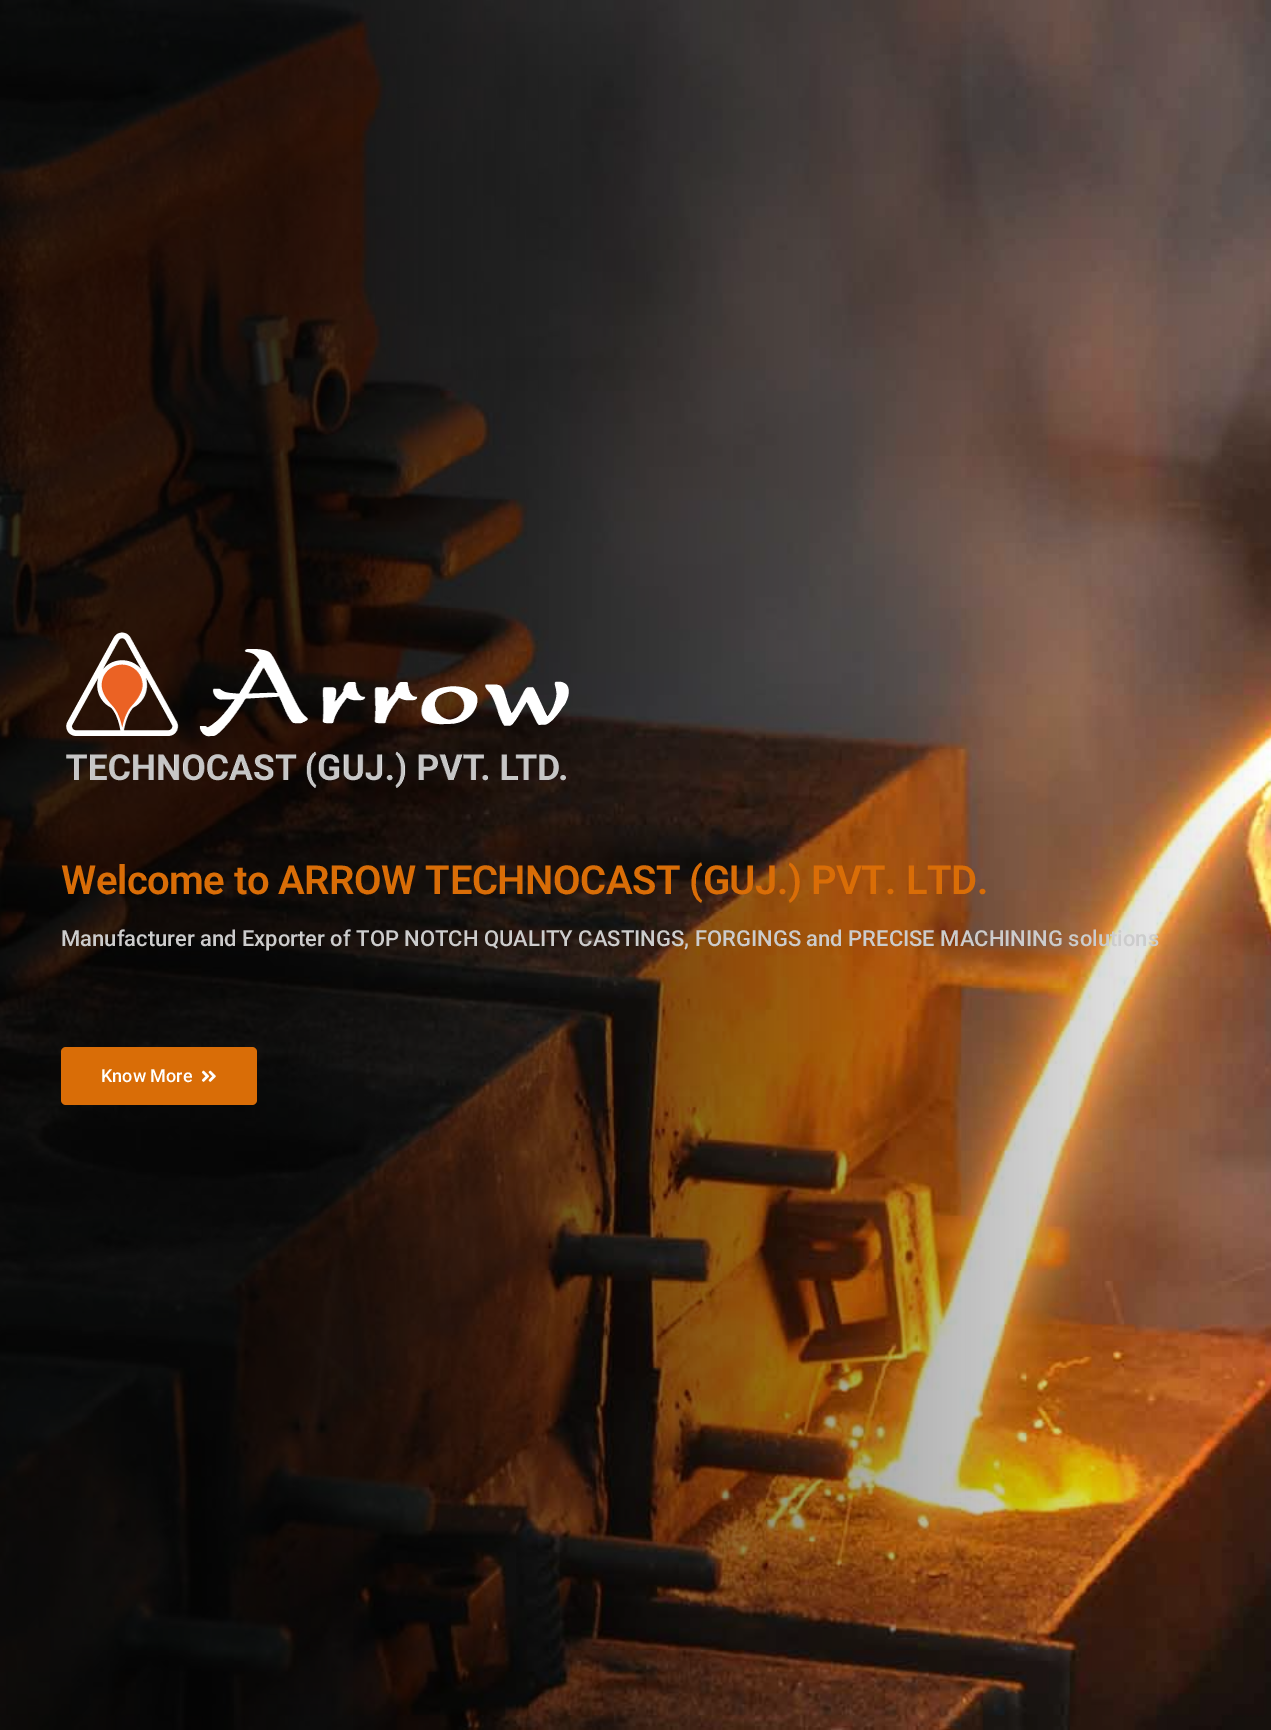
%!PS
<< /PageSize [1271 1730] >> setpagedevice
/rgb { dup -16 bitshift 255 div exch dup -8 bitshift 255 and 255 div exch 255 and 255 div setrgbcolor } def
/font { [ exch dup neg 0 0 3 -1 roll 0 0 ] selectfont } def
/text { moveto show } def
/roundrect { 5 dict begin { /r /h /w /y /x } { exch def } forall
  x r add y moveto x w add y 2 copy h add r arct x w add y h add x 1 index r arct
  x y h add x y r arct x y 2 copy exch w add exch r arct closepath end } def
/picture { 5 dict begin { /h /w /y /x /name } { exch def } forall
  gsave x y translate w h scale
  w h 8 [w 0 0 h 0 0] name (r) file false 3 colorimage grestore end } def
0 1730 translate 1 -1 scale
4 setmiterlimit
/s1 { /Roboto-Medium 22 font 16#CCCCCC rgb } def
/s2 { /Roboto-Medium 18 font 16#FFFFFF rgb } def
16#FFFFFF rgb
0 0 1271 1730 rectfill
(pic1.raw) 0 0 1271 1730 picture
(pic2.raw) 66 632 503 156 picture
/Roboto-SemiBold 40 font
16#D96D07 rgb
61 894 moveto -0.5 0 (Welcome to ARROW TECHNOCAST \(GUJ.\) PVT. LTD.) ashow
s1
(Manufacturer and Exporter of TOP NOTCH QUALITY CASTINGS, FORGINGS and PRECISE MACHINING solutions) 61 946 text
16#D96D07 rgb
61 1047 196 58 5 roundrect fill
s2
(Know More) 101 1082 text
(pic3.raw) 201 1070 15 12 picture
showpage
